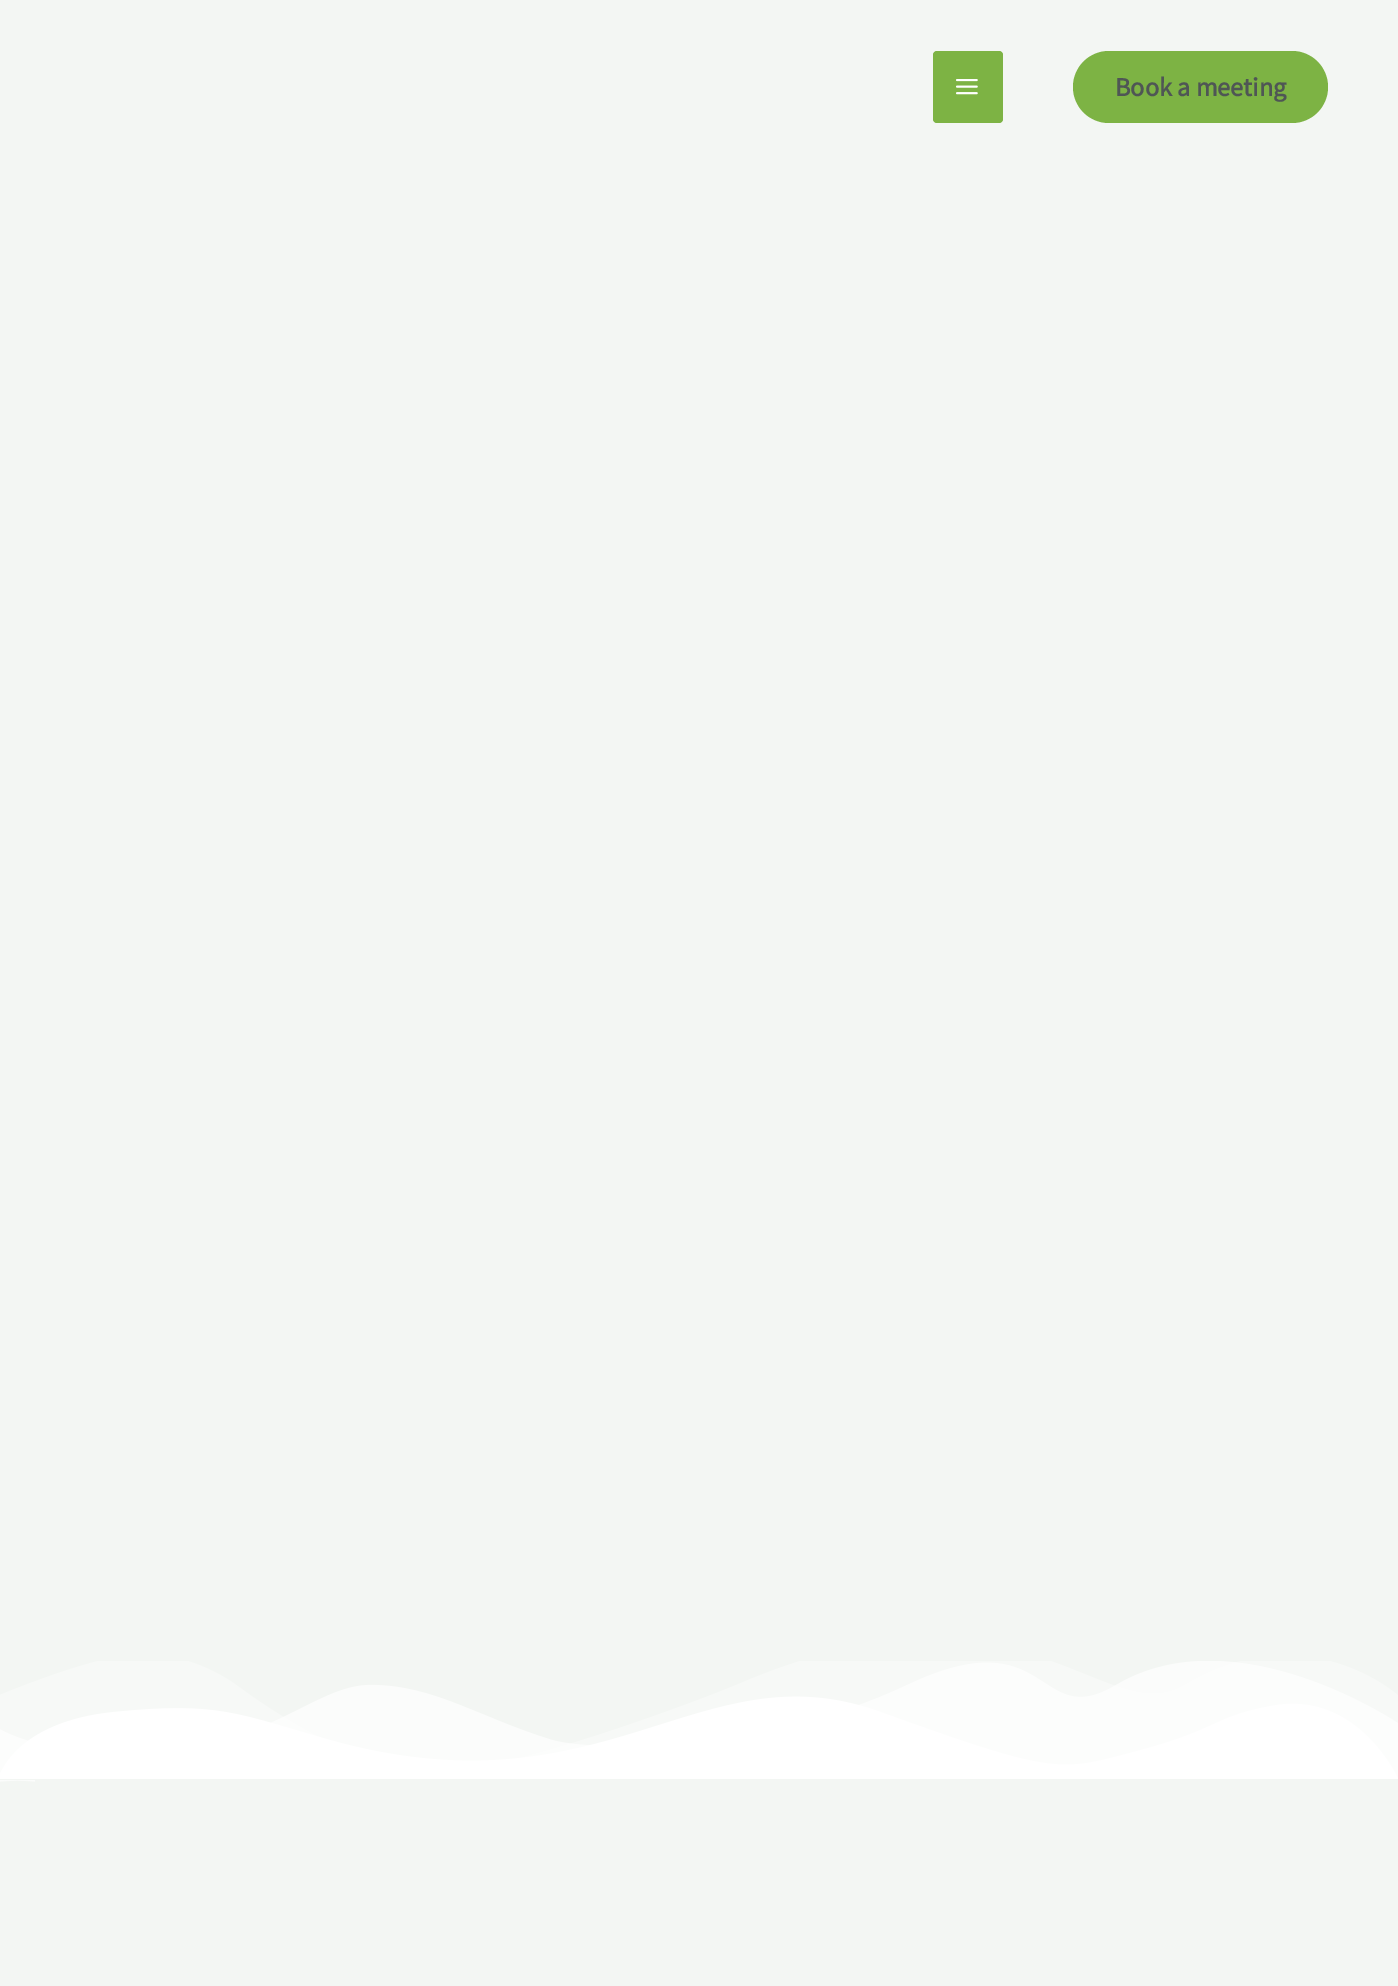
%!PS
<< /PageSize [1398 1986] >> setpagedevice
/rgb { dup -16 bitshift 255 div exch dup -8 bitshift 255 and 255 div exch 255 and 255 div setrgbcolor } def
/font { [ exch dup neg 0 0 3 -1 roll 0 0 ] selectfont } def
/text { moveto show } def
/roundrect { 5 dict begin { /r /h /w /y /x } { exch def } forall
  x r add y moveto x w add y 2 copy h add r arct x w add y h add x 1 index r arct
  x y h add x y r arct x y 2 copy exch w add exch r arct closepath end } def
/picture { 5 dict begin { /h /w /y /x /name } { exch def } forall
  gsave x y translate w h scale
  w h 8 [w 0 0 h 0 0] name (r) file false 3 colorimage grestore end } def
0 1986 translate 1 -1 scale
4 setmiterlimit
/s1 { /SourceSansPro-Bold 26.25 font 16#4F5655 rgb } def
16#F3F6F3 rgb
0 0 1398 1986 rectfill
16#7DB344 rgb
933 51 70 72 4 roundrect fill
(pic1.raw) 956 79 22 16 picture
1073 51 255 72 36 roundrect fill
s1
(Book a meeting) 1115 96 text
(pic2.raw) 0 1661 1398 118 picture
(pic3.raw) 0 1780 35 2 picture
showpage
